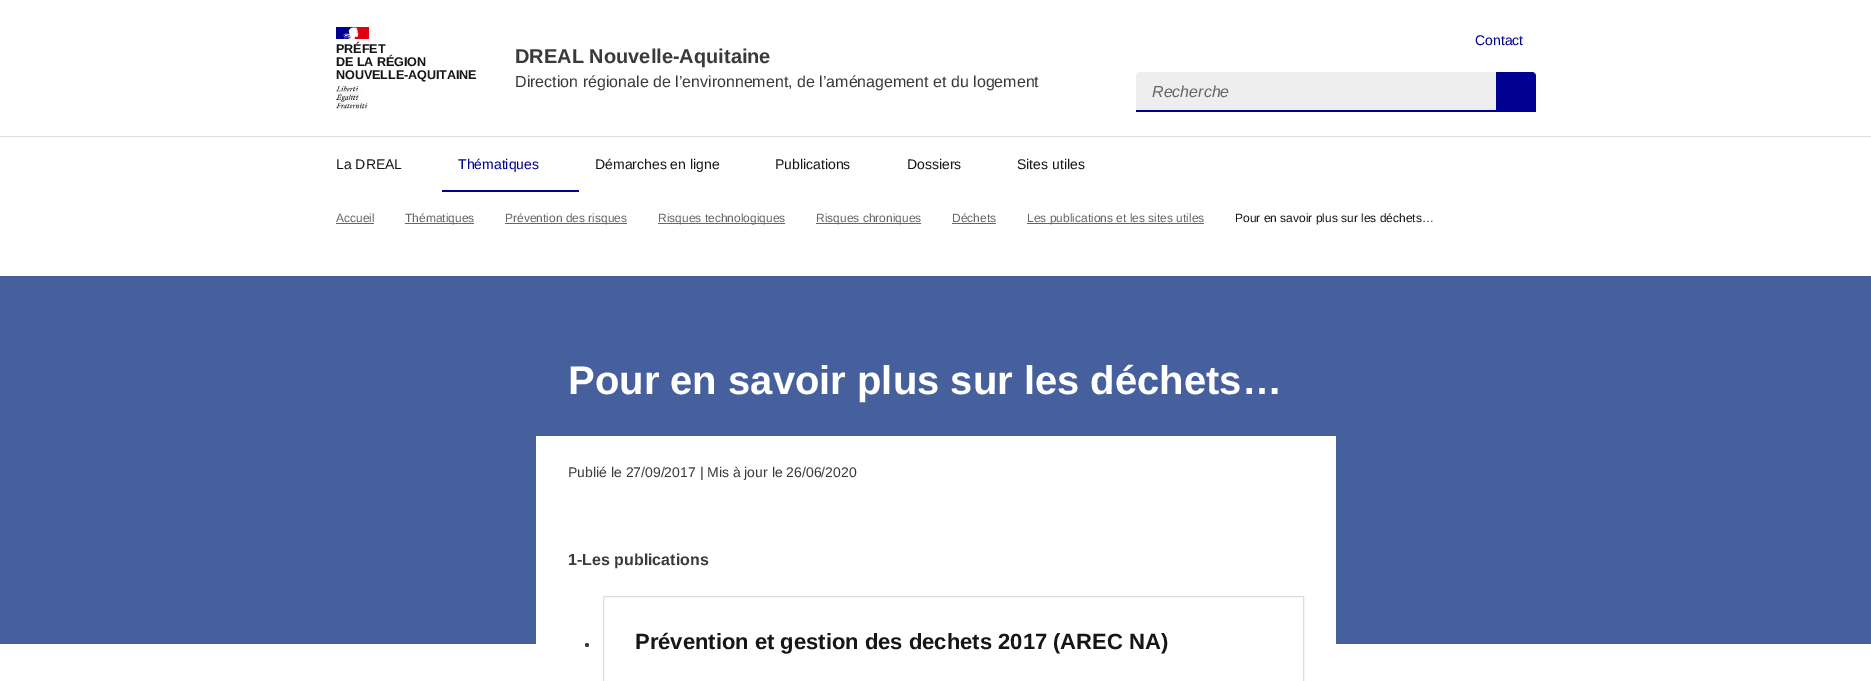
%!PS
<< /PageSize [1871 681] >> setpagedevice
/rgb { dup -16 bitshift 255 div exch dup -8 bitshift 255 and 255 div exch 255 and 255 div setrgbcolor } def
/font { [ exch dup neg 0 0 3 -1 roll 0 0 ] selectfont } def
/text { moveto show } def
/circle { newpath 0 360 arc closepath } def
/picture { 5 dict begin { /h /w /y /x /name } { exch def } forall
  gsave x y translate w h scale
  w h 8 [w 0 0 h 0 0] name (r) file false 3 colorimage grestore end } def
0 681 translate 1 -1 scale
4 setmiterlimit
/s1 { /LiberationSans-Bold 20 font 16#3A3A3A rgb } def
/s2 { /LiberationSans-Regular 16 font 16#3A3A3A rgb } def
/s3 { /LiberationSans-Regular 14 font 16#000091 rgb } def
/s4 { /LiberationSans-Italic 16 font 16#666666 rgb } def
/s5 { /LiberationSans-Regular 14 font 16#161616 rgb } def
/s6 { /LiberationSans-Regular 12 font 16#666666 rgb } def
/s7 { /LiberationSans-Regular 12 font 16#161616 rgb } def
/s8 { /LiberationSans-Bold 40 font 16#FFFFFF rgb } def
/s9 { /LiberationSans-Regular 14 font 16#3A3A3A rgb } def
/s10 { /LiberationSans-Bold 16 font 16#3A3A3A rgb } def
/s11 { /LiberationSans-Bold 22 font 16#161616 rgb } def
16#FFFFFF rgb
0 0 1871 681 rectfill
16#000091 rgb
336 27 17 12 rectfill
16#E1000F rgb
353 27 16 12 rectfill
(pic1.raw) 343 27 16 12 picture
/LiberationSans-Bold 12.6 font
16#161616 rgb
336 53 moveto -0.1 0 (PRÉFET) ashow
336 66 moveto -0.1 0 (DE LA RÉGION) ashow
336 79 moveto -0.1 0 (NOUVELLE-AQUITAINE) ashow
(pic2.raw) 336 86 32 24 picture
s1
(DREAL Nouvelle-Aquitaine) 515 63 text
s2
(Direction régionale de l’environnement, de l’aménagement et du logement) 515 87 text
s3
(Contact) 1475 45 text
16#EEEEEE rgb
1140 72 moveto 1496 72 lineto 1496 112 lineto 1136 112 lineto 1136 76 lineto 1136 74 1138 72 1140 72 curveto closepath fill
16#000091 rgb
1136 110 360 2 rectfill
s4
(Recherche) 1152 97 text
16#000091 rgb
1496 72 moveto 1532 72 lineto 1534 72 1536 74 1536 76 curveto 1536 112 lineto 1496 112 lineto closepath fill
16#DDDDDD rgb
0 136 1871 1 rectfill
s5
(La DREAL) 336 169 text
s3
(Thématiques) 458 169 text
442 190 137 2 rectfill
s5
(Démarches en ligne) 595 169 text
(Publications) 775 169 text
(Dossiers) 907 169 text
(Sites utiles) 1017 169 text
s6
(Accueil) 336 222 text
336 223 38 1 rectfill
405 223 69 1 rectfill
(Thématiques) 405 222 text
505 223 122 1 rectfill
(Prévention des risques) 505 222 text
658 223 127 1 rectfill
(Risques technologiques) 658 222 text
816 223 105 1 rectfill
(Risques chroniques) 816 222 text
(Déchets) 952 222 text
952 223 44 1 rectfill
1027 223 177 1 rectfill
(Les publications et les sites utiles) 1027 222 text
s7
(Pour en savoir plus sur les déchets…) 1235 222 text
16#465F9D rgb
0 276 1871 368 rectfill
s8
(Pour en savoir plus sur les déchets…) 568 394 text
536 436 800 208 rectfill
s9
(Publié le 27/09/2017 | Mis à jour le 26/06/2020) 568 477 text
s10
(1-Les publications) 568 565 text
587 645 2 circle fill
16#DDDDDD rgb
603.5 596.5 700 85 rectstroke
s11
(Prévention et gestion des dechets 2017 \(AREC NA\)) 635 649 text
showpage
